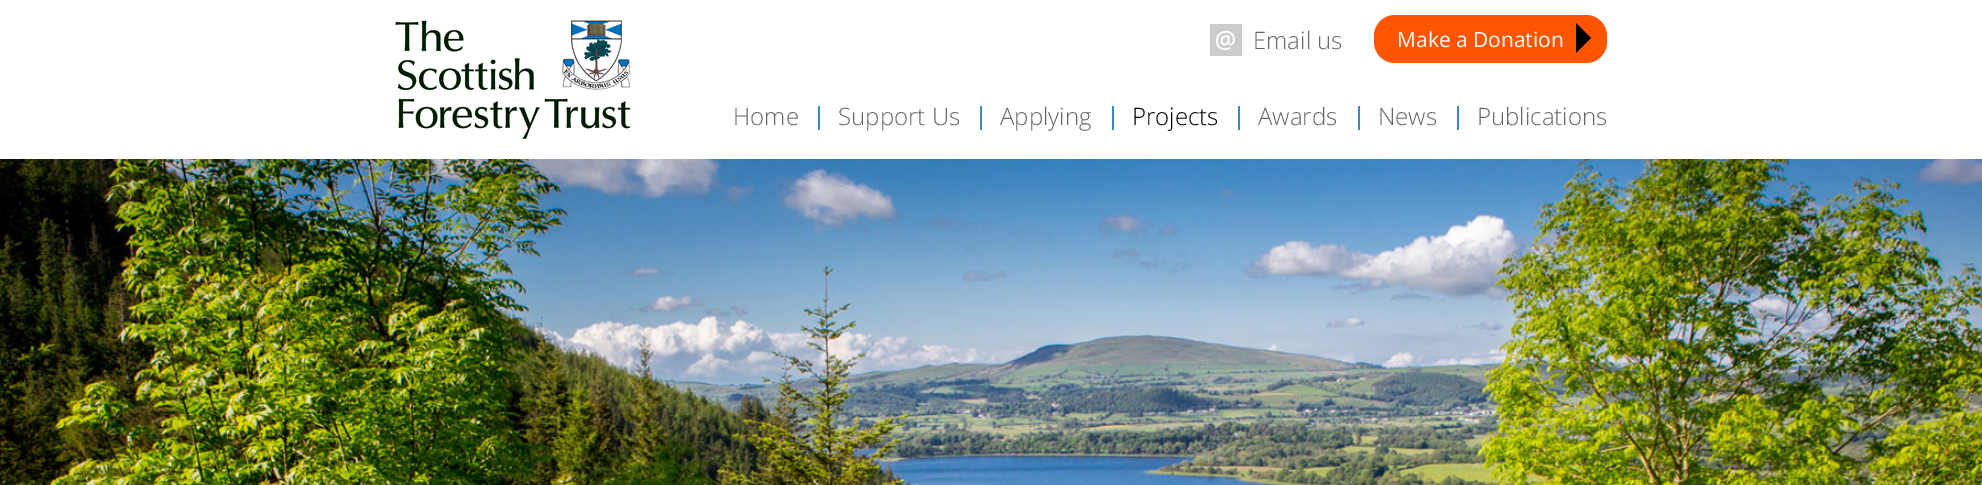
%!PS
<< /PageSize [1982 485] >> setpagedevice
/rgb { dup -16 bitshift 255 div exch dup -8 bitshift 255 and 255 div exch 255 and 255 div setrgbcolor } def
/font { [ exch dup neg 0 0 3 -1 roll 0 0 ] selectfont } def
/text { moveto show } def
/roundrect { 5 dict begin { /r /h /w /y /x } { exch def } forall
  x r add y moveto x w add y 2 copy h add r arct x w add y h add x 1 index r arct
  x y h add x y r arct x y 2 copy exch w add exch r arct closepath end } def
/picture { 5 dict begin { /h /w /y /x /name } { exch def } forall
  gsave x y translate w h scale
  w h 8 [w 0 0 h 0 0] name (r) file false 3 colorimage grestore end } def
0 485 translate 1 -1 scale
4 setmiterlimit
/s1 { /OpenSans-Light 24 font 16#666666 rgb } def
/s2 { /OpenSans-Regular 21 font 16#FFFFFF rgb } def
/s3 { /OpenSans-Light 24 font 16#000000 rgb } def
16#FFFFFF rgb
0 0 1982 485 rectfill
(pic1.raw) 395 20 236 120 picture
16#CCCCCC rgb
1210 24 32 32 rectfill
(pic2.raw) 1216 30 19 20 picture
s1
(Email us) 1253 49 text
16#FF5500 rgb
1374 15 233 48 21 roundrect fill
s2
(Make a Donation) 1397 47 text
16#000000 rgb
1576 53 moveto 1576 23 lineto 1591 38 lineto closepath fill
s1
(Home) 733 125 text
16#338BCA rgb
818 106 2 24 rectfill
s1
(Support Us) 838 125 text
16#338BCA rgb
980 106 2 24 rectfill
s1
(Applying) 1000 125 text
16#338BCA rgb
1112 106 2 24 rectfill
s3
(Projects) 1132 125 text
16#338BCA rgb
1238 106 2 24 rectfill
s1
(Awards) 1258 125 text
16#338BCA rgb
1358 106 2 24 rectfill
s1
(News) 1378 125 text
16#338BCA rgb
1457 106 2 24 rectfill
s1
(Publications) 1477 125 text
(pic3.raw) 0 159 1982 326 picture
showpage
